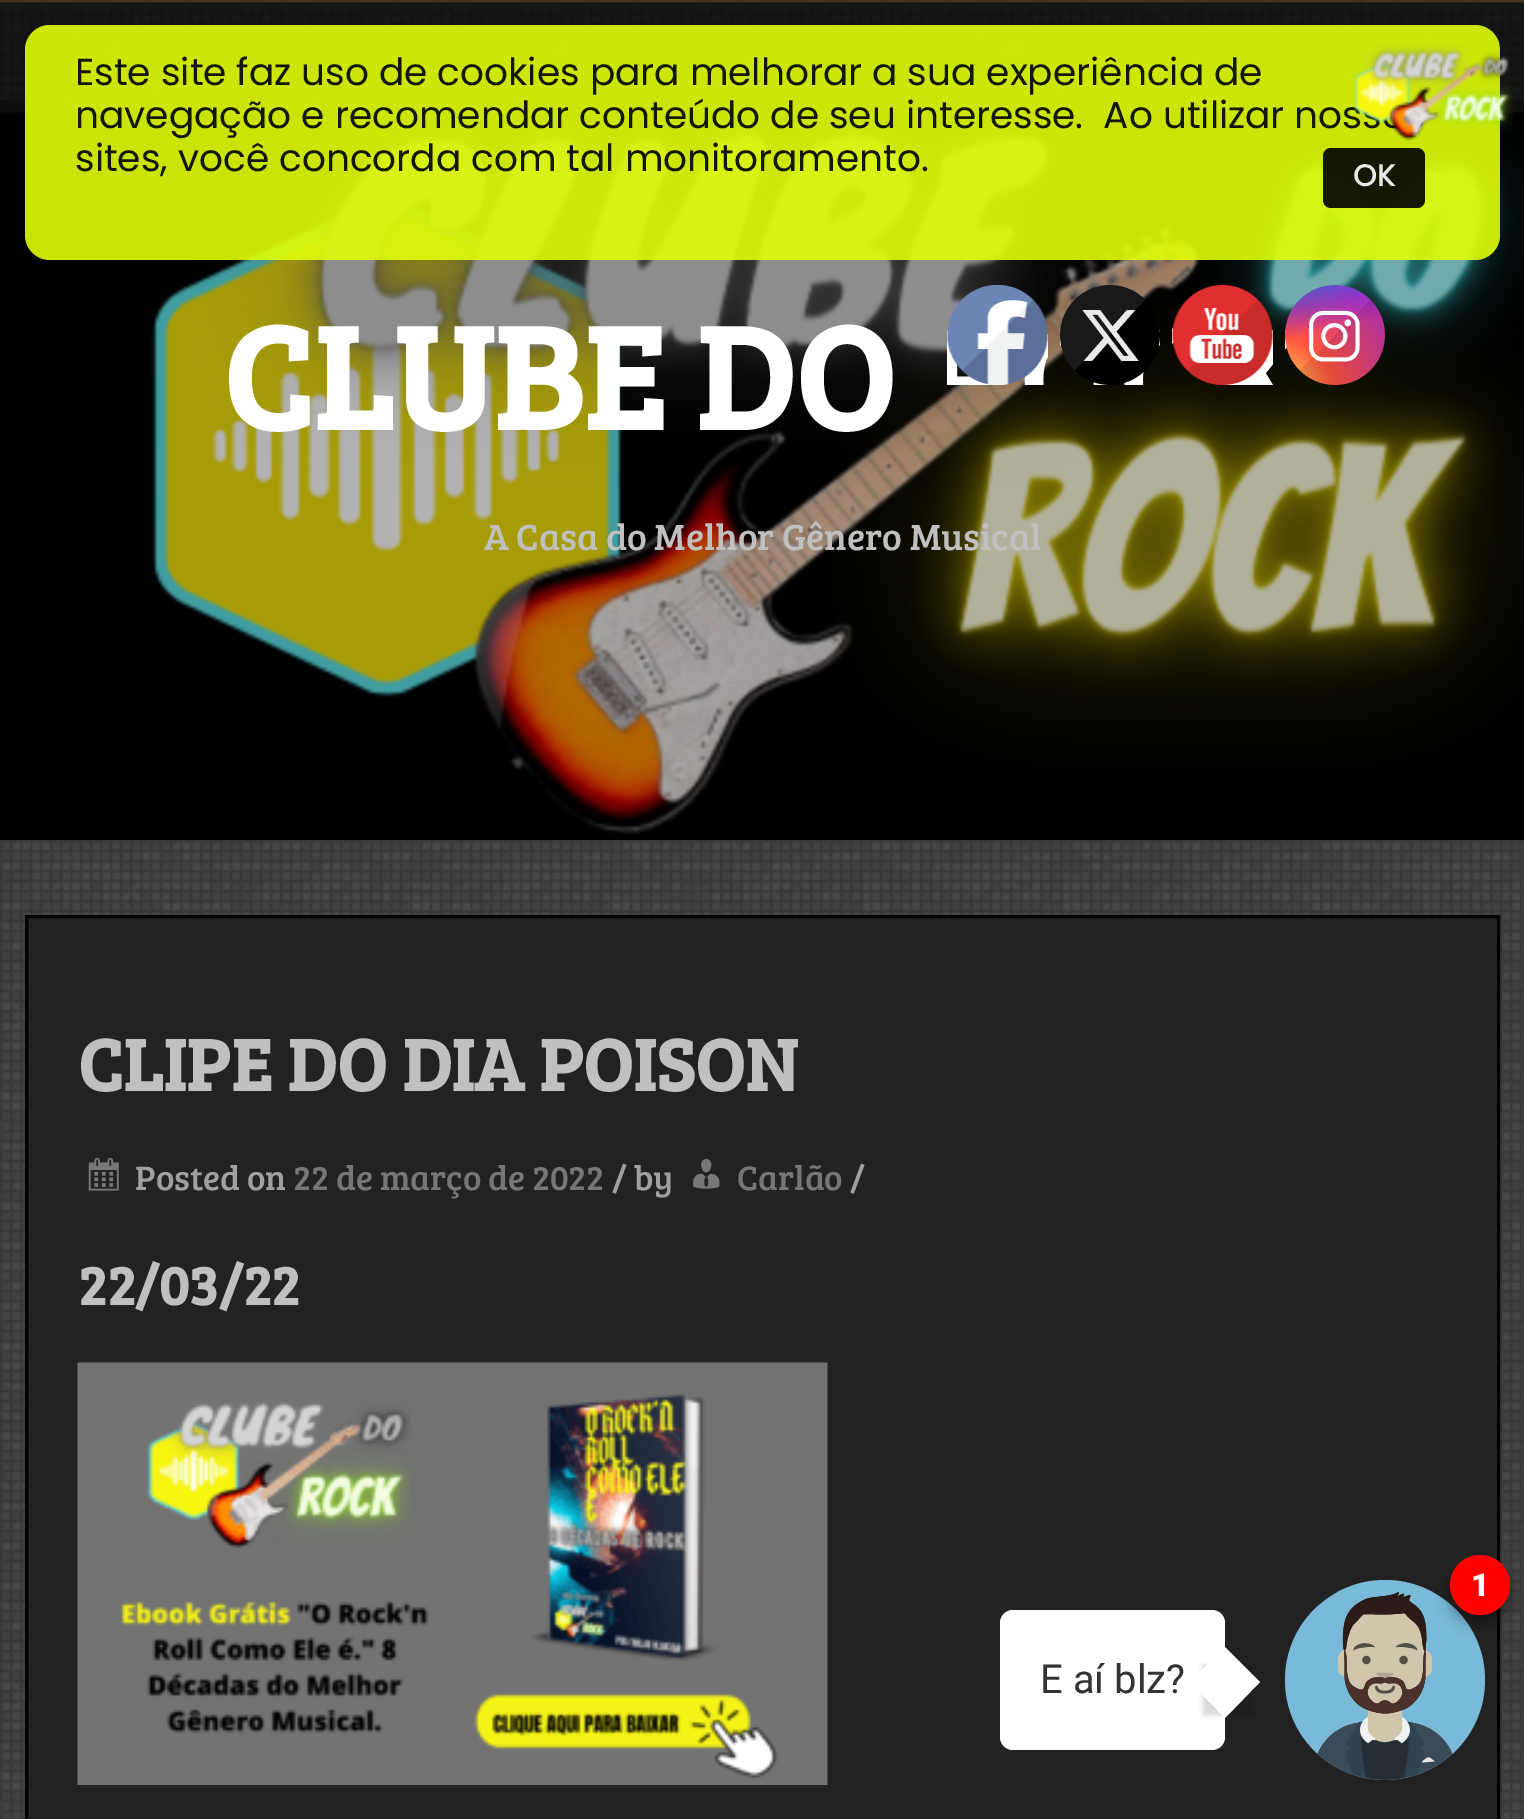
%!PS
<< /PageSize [1524 1819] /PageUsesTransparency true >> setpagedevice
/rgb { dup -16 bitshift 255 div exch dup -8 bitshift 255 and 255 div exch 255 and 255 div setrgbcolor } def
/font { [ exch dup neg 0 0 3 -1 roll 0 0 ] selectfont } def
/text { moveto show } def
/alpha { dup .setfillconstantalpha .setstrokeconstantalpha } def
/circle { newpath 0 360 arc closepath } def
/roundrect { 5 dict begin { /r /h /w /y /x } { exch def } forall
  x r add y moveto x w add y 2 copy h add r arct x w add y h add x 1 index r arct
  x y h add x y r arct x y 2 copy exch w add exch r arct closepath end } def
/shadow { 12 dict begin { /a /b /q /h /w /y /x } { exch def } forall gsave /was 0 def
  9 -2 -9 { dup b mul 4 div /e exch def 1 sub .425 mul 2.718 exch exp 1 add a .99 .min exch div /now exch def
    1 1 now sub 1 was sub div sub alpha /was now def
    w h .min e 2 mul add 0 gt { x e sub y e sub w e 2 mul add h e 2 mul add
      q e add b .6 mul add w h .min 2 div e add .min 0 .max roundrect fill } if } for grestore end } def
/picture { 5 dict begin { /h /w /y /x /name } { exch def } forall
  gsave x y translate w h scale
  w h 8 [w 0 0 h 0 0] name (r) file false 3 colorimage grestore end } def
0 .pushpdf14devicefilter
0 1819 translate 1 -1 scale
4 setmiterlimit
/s1 { /Poppins-Regular 37.5 font 16#141701 rgb } def
/s2 { /Poppins-Bold 30 font 16#E8E8E6 rgb } def
/s3 { /BreeSerif-Bold 150 font 16#FFFFFF rgb } def
/s4 { /BreeSerif-Regular 37.5 font 16#C0C0C0 rgb } def
/s5 { /BreeSerif-Bold 75 font 16#C0C0C0 rgb } def
/s6 { /BreeSerif-Regular 35 font 16#A0A0A0 rgb } def
/s7 { /BreeSerif-Regular 35 font 16#777777 rgb } def
/s8 { /BreeSerif-Bold 56 font 16#C0C0C0 rgb } def
/s9 { /Roboto-Black 32 font 16#FFFFFF rgb } def
/s10 { /Roboto-Regular 40 font 16#333333 rgb } def
16#FFFFFF rgb
0 0 1524 1819 rectfill
(pic1.raw) 0 840 1524 979 picture
(pic2.raw) 0 100 1524 13 picture
16#44341B rgb
0 0 1524 3 rectfill
(pic3.raw) 0 2 1524 98 picture
(pic5.raw) 0 112 1524 728 picture
0.3 alpha
16#000000 rgb
0 100 1524 735 rectfill
0.9 alpha
16#E0FD08 rgb
25 25 1475 235 25 roundrect fill
1 alpha
s1
(Este site faz uso de cookies para melhorar a sua experiência de) 75 85 text
(navegação e recomendar conteúdo de seu interesse.  Ao utilizar noss) 75 128 text
(sites, você concorda com tal monitoramento.) 75 171 text
0.9 alpha
16#000000 rgb
1323 148 102 60 8 roundrect fill
1 alpha
s2
(OK) 1353 186 text
(pic4.raw) 1353 44 160 97 picture
s3
(CLUBE DO) 223 430 text
s4
(A Casa do Melhor Gênero Musical) 484 550 text
(pic6.raw) 947 285 101 100 picture
(pic7.raw) 1060 285 100 100 picture
(pic8.raw) 1172 285 101 100 picture
(pic9.raw) 1285 285 100 100 picture
16#222222 rgb
26.5 916.5 moveto 1498.5 916.5 lineto 1498.5 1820.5 lineto 26.5 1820.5 lineto closepath gsave fill grestore
16#000000 rgb
3 setlinewidth
stroke
s5
(CLIPE DO DIA POISON) 78 1091 text
(pic10.raw) 88 1157 31 34 picture
s6
(Posted on) 135 1190 text
s7
(22 de março de 2022) 293 1190 text
s6
(/ by) 612 1190 text
(pic11.raw) 693 1159 27 30 picture
s7
(Carlão) 737 1190 text
s6
(/) 850 1190 text
s8
(22/03/22) 78 1305 text
(pic12.raw) 77 1362 751 423 picture
16#79BAD9 rgb
1385 1680 100 circle fill
(pic13.raw) 1317 1592 136 188 picture
16#000000 rgb
1450 1563 60 60 30 7.5 0.23 shadow
1450 1563 60 60 30 7.5 0.16 shadow
16#FF0000 rgb
1480 1585 30 circle fill
s9
(1) 1471 1596 text
1000 1610 225 140 13 roundrect fill
s10
(E aí blz?) 1040 1693 text
16#000000 rgb
1203 1665 50 50 0 2.5 0.1 shadow
1203 1665 50 50 0 2.5 0.06 shadow
16#FFFFFF rgb
1190 1682 moveto 1225 1647 lineto 1260 1682 lineto 1225 1718 lineto closepath fill
.poppdf14devicefilter showpage
